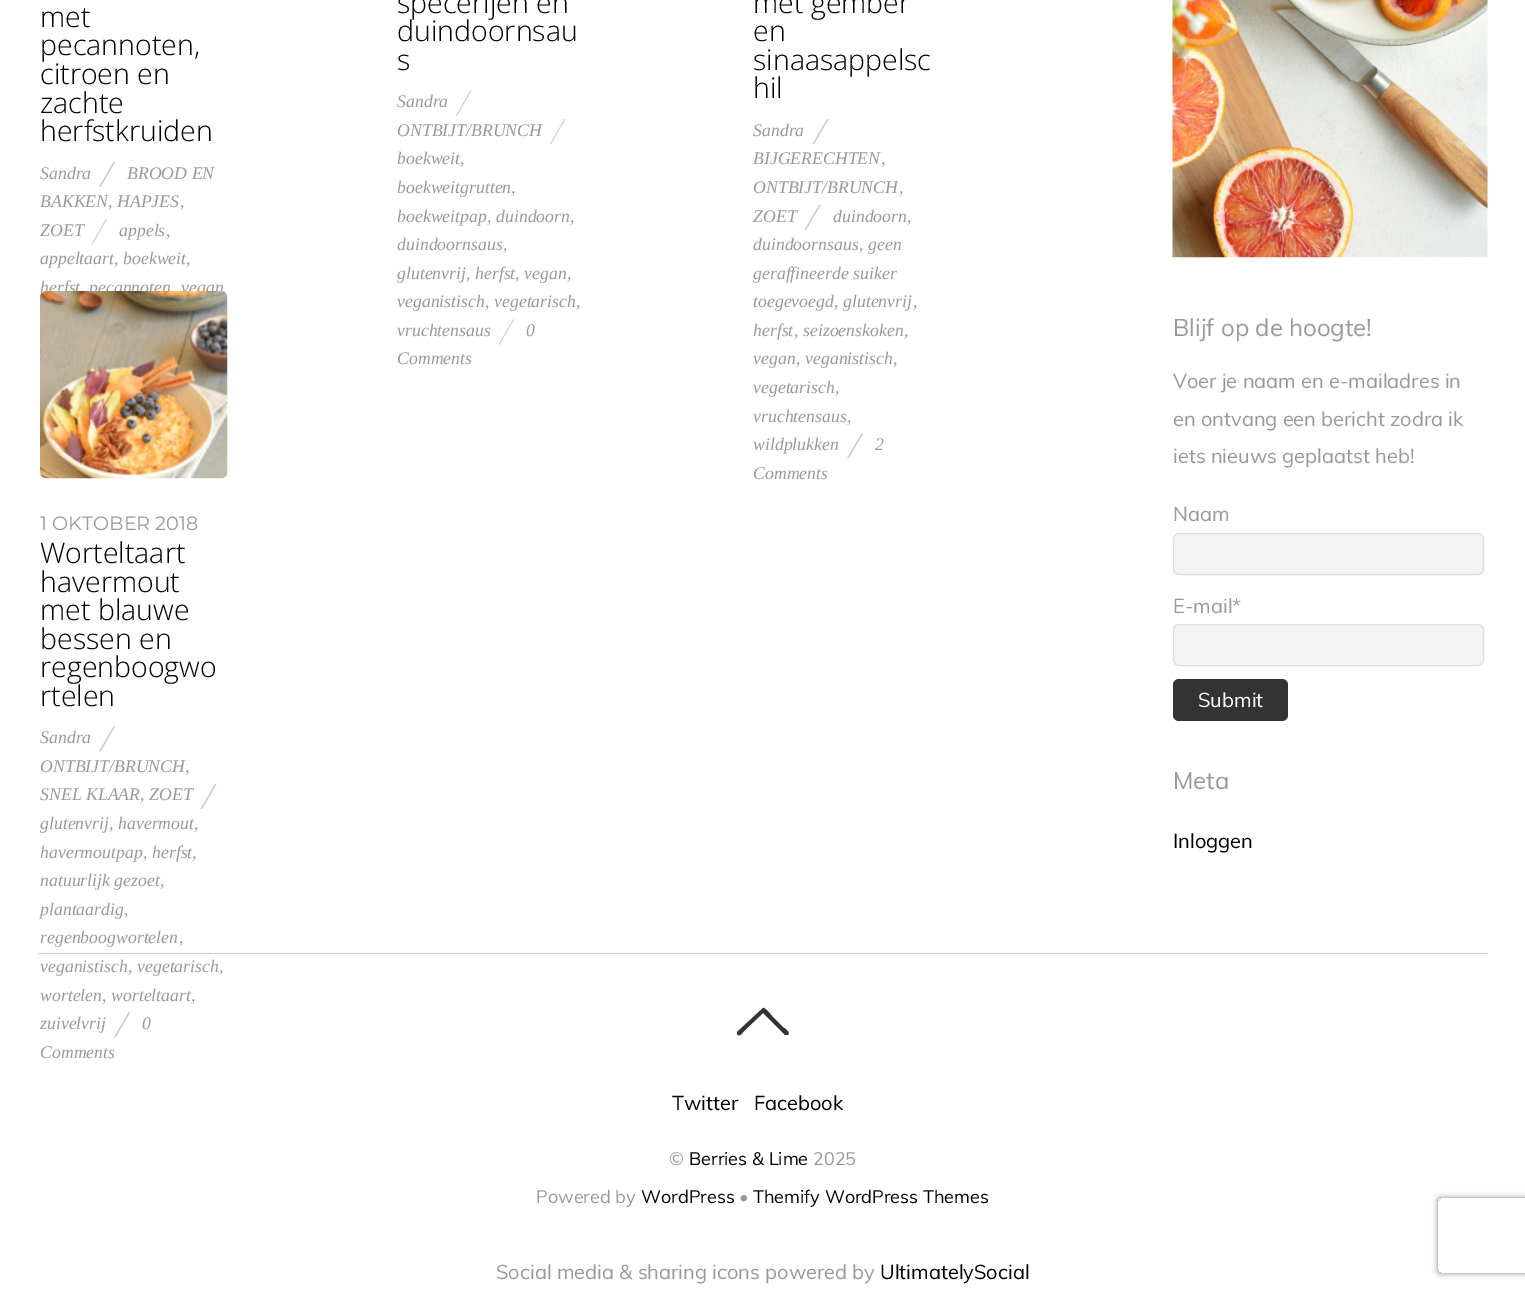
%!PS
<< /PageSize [1525 1290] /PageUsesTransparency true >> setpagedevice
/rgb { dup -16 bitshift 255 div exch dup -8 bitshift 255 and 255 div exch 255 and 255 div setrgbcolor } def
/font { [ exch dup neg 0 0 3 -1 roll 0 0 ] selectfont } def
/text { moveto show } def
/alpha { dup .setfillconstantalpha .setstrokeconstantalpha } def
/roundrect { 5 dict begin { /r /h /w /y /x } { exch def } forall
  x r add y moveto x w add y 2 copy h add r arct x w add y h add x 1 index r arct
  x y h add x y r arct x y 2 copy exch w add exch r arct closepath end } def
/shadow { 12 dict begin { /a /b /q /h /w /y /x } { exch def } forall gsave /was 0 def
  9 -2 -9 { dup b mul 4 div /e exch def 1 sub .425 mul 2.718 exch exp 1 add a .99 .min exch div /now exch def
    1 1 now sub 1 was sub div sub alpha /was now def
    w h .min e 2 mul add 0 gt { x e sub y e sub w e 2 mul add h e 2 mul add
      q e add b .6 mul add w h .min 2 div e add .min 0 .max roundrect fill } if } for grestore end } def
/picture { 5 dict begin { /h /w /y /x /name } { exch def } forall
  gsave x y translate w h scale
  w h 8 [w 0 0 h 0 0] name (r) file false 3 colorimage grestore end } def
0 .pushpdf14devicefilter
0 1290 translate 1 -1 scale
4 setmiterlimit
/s1 { /OpenSans-Light 28.5 font 16#000000 rgb } def
/s2 { /LiberationSerif-Italic 17.75 font 16#999999 rgb } def
/s3 { /Montserrat-Regular 19.25 font 16#999999 rgb } def
/s4 { /Muli-Regular 24 font 16#999999 rgb } def
/s5 { /Muli-Regular 20 font 16#999999 rgb } def
/s6 { /Muli-Regular 20 font 16#FFFFFF rgb } def
/s7 { /Muli-Regular 20 font 16#000000 rgb } def
/s8 { /Muli-Regular 18 font 16#999999 rgb } def
/s9 { /Muli-Regular 18 font 16#000000 rgb } def
16#FFFFFF rgb
0 0 1525 1290 rectfill
s1
(met) 40 27 text
(pecannoten,) 40 55 text
(citroen en) 40 84 text
(zachte) 40 113 text
(herfstkruiden) 40 141 text
s2
(Sandra) 40 179 text
16#CCCCCC rgb
113.5 162 moveto 115 162 lineto 100.5 187 lineto 99 187 lineto closepath fill
s2
(BROOD EN) 127 179 text
(BAKKEN) 40 207 text
(HAPJES) 117 207 text
(,) 108 207 text
(,) 180 207 text
(ZOET) 40 236 text
16#CCCCCC rgb
106 219 moveto 107 219 lineto 92.5 244 lineto 91.5 244 lineto closepath fill
s2
(appels) 119 236 text
(,) 166 236 text
(appeltaart) 40 264 text
(,) 114 264 text
(boekweit) 123 264 text
(,) 186 264 text
(herfst) 40 293 text
(pecannoten) 89 293 text
(vegan) 181 293 text
(pic1.raw) 40 291 188 188 picture
0.2 alpha
16#000000 rgb
112.5 390.5 moveto 114 390.5 lineto 99.5 415.5 lineto 98 415.5 lineto closepath fill
1 alpha
s1
(specerijen en) 397 13 text
(duindoornsau) 397 41 text
(s) 397 70 text
s2
(Sandra) 397 107 text
16#CCCCCC rgb
470.5 90.5 moveto 471.5 90.5 lineto 457 115.5 lineto 456 115.5 lineto closepath fill
s2
(ONTBIJT/BRUNCH) 397 136 text
16#CCCCCC rgb
564.5 119 moveto 565.5 119 lineto 551 144 lineto 550 144 lineto closepath fill
s2
(boekweit) 397 164 text
(,) 460 164 text
(boekweitgrutten) 397 193 text
(,) 511 193 text
(boekweitpap) 397 222 text
(,) 487 222 text
(duindoorn) 496 222 text
(,) 570 222 text
(duindoornsaus) 397 250 text
(,) 503 250 text
(glutenvrij) 397 279 text
(,) 466 279 text
(herfst) 475 279 text
(,) 515 279 text
(vegan) 524 279 text
(,) 567 279 text
(veganistisch) 397 307 text
(,) 485 307 text
(vegetarisch) 494 307 text
(,) 576 307 text
(vruchtensaus) 397 336 text
16#CCCCCC rgb
513 319.5 moveto 514 319.5 lineto 499.5 344.5 lineto 498.5 344.5 lineto closepath fill
s2
(0) 526 336 text
(Comments) 397 364 text
s1
(met gember) 753 13 text
(en) 753 41 text
(sinaasappelsc) 753 70 text
(hil) 753 98 text
s2
(Sandra) 753 136 text
16#CCCCCC rgb
827 119 moveto 828.5 119 lineto 814 144 lineto 812.5 144 lineto closepath fill
s2
(BIJGERECHTEN) 753 164 text
(,) 881 164 text
(ONTBIJT/BRUNCH) 753 193 text
(,) 899 193 text
(ZOET) 753 222 text
16#CCCCCC rgb
819 205 moveto 820.5 205 lineto 806 230 lineto 804.5 230 lineto closepath fill
s2
(duindoorn) 833 222 text
(,) 907 222 text
(duindoornsaus) 753 250 text
(,) 859 250 text
(geen) 868 250 text
(geraffineerde suiker) 753 279 text
(toegevoegd) 753 307 text
(,) 834 307 text
(glutenvrij) 843 307 text
(,) 913 307 text
(herfst) 753 336 text
(,) 794 336 text
(seizoenskoken) 803 336 text
(,) 904 336 text
(vegan) 753 364 text
(,) 796 364 text
(veganistisch) 805 364 text
(,) 893 364 text
(vegetarisch) 753 393 text
(,) 835 393 text
(vruchtensaus) 753 422 text
(,) 847 422 text
(wildplukken) 753 450 text
16#CCCCCC rgb
861.5 433.5 moveto 863 433.5 lineto 848.5 458.5 lineto 847 458.5 lineto closepath fill
s2
(2) 875 450 text
(Comments) 753 479 text
s3
(1 OKTOBER 2018) 40 530 text
s1
(Worteltaart) 40 563 text
(havermout) 40 592 text
(met blauwe) 40 620 text
(bessen en) 40 649 text
(regenboogwo) 40 677 text
(rtelen) 40 706 text
s2
(Sandra) 40 743 text
16#CCCCCC rgb
113.5 726.5 moveto 115 726.5 lineto 100.5 751.5 lineto 99 751.5 lineto closepath fill
s2
(ONTBIJT/BRUNCH) 40 772 text
(,) 185 772 text
(SNEL KLAAR) 40 800 text
(,) 140 800 text
(ZOET) 149 800 text
16#CCCCCC rgb
215 784 moveto 216.5 784 lineto 202 809 lineto 200.5 809 lineto closepath fill
s2
(glutenvrij) 40 829 text
(,) 109 829 text
(havermout) 118 829 text
(,) 194 829 text
(havermoutpap) 40 858 text
(,) 143 858 text
(herfst) 152 858 text
(,) 192 858 text
(natuurlijk gezoet) 40 886 text
(,) 160 886 text
(plantaardig) 40 915 text
(,) 124 915 text
(regenboogwortelen) 40 943 text
(,) 179 943 text
(veganistisch) 40 972 text
(,) 128 972 text
(vegetarisch) 137 972 text
(,) 219 972 text
(wortelen) 40 1001 text
(,) 102 1001 text
(worteltaart) 111 1001 text
(,) 191 1001 text
(zuivelvrij) 40 1029 text
16#CCCCCC rgb
128.5 1012.5 moveto 130 1012.5 lineto 115.5 1037.5 lineto 114 1037.5 lineto closepath fill
s2
(0) 142 1029 text
(Comments) 40 1058 text
(pic2.raw) 1172 0 316 258 picture
s4
(Blijf op de hoogte!) 1173 336 text
s5
(Voer je naam en e-mailadres in) 1173 388 text
(en ontvang een bericht zodra ik) 1173 426 text
(iets nieuws geplaatst heb!) 1173 463 text
(Naam) 1173 521 text
16#F3F3F3 rgb
1173.5 533.5 310 41 5.5 roundrect gsave fill grestore
16#DDDDDD rgb
stroke
s5
(E-mail*) 1173 613 text
16#F3F3F3 rgb
1173.5 624.5 310 41 5.5 roundrect gsave fill grestore
16#DDDDDD rgb
stroke
16#333333 rgb
1173 679 115 42 6 roundrect fill
s6
(Submit) 1198 707 text
s4
(Meta) 1173 789 text
s7
(Inloggen) 1173 848 text
16#CCCCCC rgb
38 953 1450 1 rectfill
16#333333 rgb
785 1035 moveto 763 1013 lineto 744 1031 lineto 743 1032 739 1038 737 1034 curveto 737 1032 lineto 763 1008 lineto 765 1007 771 1015 772 1016 curveto 784 1028 lineto 785 1028 792 1034 787 1035 curveto closepath fill
s7
(Twitter) 672 1110 text
(Facebook) 754 1110 text
s8
(©) 669 1165 text
s9
(Berries & Lime) 689 1165 text
s8
(2025) 813 1165 text
(Powered by) 536 1203 text
s9
(WordPress) 641 1203 text
s8
(•) 739 1203 text
s9
(Themify WordPress Themes) 753 1203 text
s5
(Social media & sharing icons powered by) 496 1279 text
s7
(UltimatelySocial) 880 1279 text
gsave
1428 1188 moveto 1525 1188 lineto 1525 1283 lineto 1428 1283 lineto closepath 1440.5 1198 moveto 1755.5 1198 lineto 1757 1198 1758 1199 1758 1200.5 curveto 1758 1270.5 lineto 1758 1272 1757 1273 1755.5 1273 curveto 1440.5 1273 lineto 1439 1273 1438 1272 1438 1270.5 curveto 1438 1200.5 lineto 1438 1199 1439 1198 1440.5 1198 curveto closepath eoclip newpath
16#808080 rgb
1438 1198 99 75 2.5 3 1 shadow
grestore
.poppdf14devicefilter showpage
